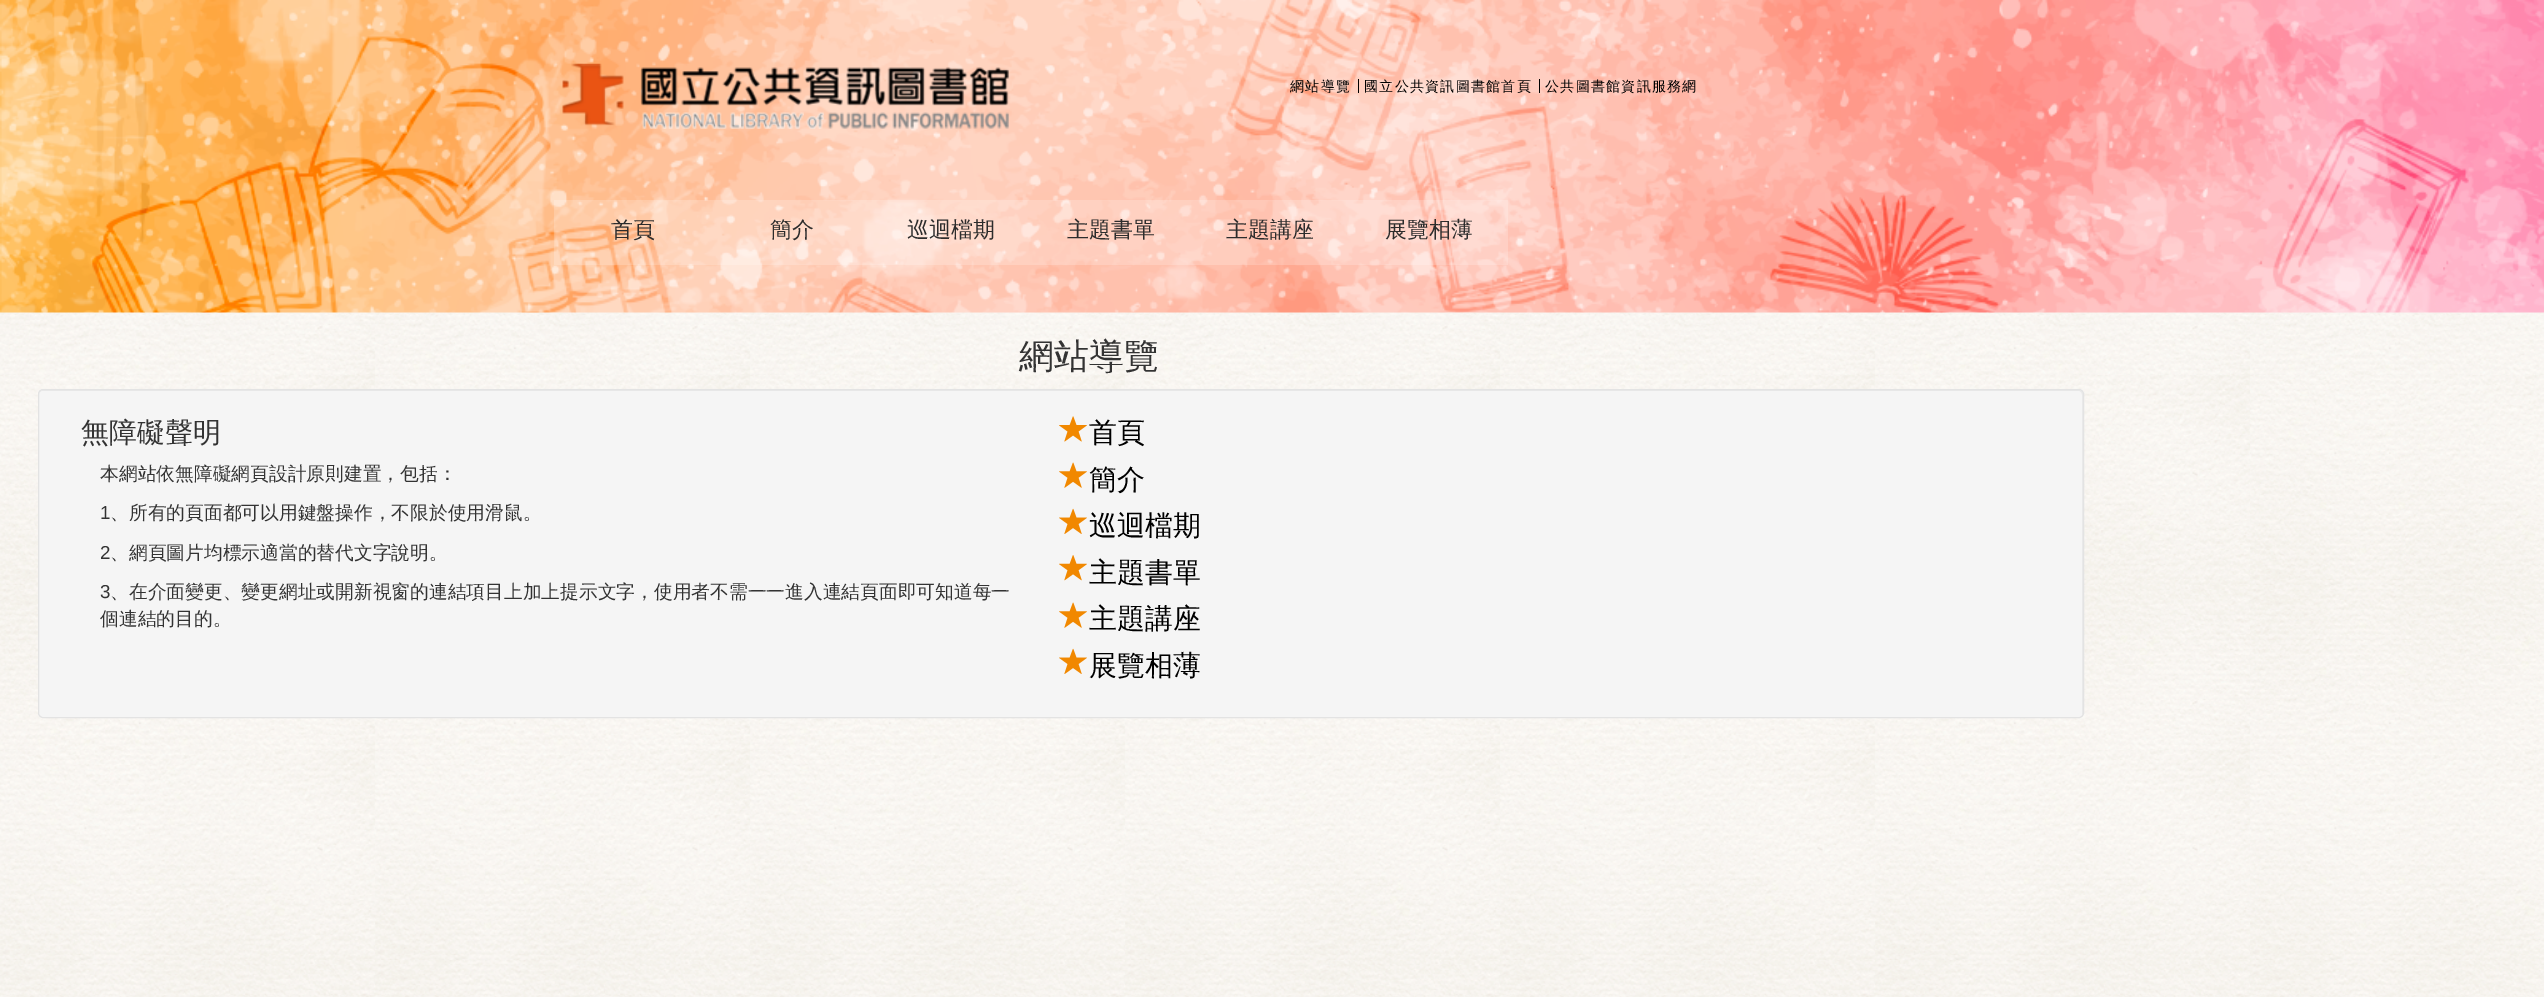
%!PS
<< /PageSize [2544 997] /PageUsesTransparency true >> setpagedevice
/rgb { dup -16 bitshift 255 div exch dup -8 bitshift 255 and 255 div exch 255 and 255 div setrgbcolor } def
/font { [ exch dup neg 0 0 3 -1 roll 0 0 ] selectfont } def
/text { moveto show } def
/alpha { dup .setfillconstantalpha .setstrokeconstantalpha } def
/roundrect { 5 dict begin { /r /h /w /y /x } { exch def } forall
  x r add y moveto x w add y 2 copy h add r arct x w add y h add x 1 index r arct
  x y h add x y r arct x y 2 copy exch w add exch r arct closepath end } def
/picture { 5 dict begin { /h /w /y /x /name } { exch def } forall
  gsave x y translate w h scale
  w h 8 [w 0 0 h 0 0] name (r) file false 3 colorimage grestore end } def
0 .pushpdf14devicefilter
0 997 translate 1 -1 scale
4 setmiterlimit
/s1 { /WenQuanYiZenHei-Medium 22 font 16#2C2C2C rgb } def
/s2 { /WenQuanYiZenHei-Medium 35 font 16#333333 rgb } def
/s3 { /WenQuanYiZenHei-Medium 28 font 16#333333 rgb } def
/s4 { /WenQuanYiZenHei-Medium 18.75 font 16#333333 rgb } def
/s5 { /LiberationSans-Regular 18.75 font 16#333333 rgb } def
/s6 { /WenQuanYiZenHei-Medium 28 font 16#000000 rgb } def
16#FFFFFF rgb
0 0 2544 997 rectfill
(pic1.raw) 0 312 2544 685 picture
(pic2.raw) 0 0 2544 313 picture
(pic3.raw) 562 63 447 66 picture
/WenQuanYiZenHei-Medium 14 font
16#000000 rgb
1290 91 moveto 1.25 0 (網站導覽) ashow
1358 79 1 14 rectfill
1364 91 moveto 1.25 0 (國立公共資訊圖書館首頁) ashow
1539 79 1 14 rectfill
1545 91 moveto 1.25 0 (公共圖書館資訊服務網) ashow
0.2 alpha
16#FFFFFF rgb
554 200 159 65 rectfill
1 alpha
s1
(首頁) 611 237 text
0.2 alpha
16#FFFFFF rgb
713 200 158 65 rectfill
1 alpha
s1
(簡介) 770 237 text
0.2 alpha
16#FFFFFF rgb
871 200 160 65 rectfill
1 alpha
s1
(巡迴檔期) 907 237 text
0.2 alpha
16#FFFFFF rgb
1031 200 159 65 rectfill
1 alpha
s1
(主題書單) 1067 237 text
0.2 alpha
16#FFFFFF rgb
1190 200 159 65 rectfill
1 alpha
s1
(主題講座) 1226 237 text
0.2 alpha
16#FFFFFF rgb
1349 200 159 65 rectfill
1 alpha
s1
(展覽相薄) 1385 237 text
s2
(網站導覽) 1019 368 text
16#F5F5F5 rgb
38 389 2046 329 5 roundrect fill
16#E9E9E9 rgb
42 391 moveto 2079 391 lineto 2081 391 2082 393 2082 395 curveto 2082 715 lineto 2083 714 2083 713 2083 712 curveto 2083 394 lineto 2083 392 2081 390 2079 390 curveto 43 390 lineto 41 390 39 392 39 394 curveto 39 395 lineto 39 393 40 391 42 391 curveto closepath fill
16#E3E3E3 rgb
38.5 389.5 2045 328 4.5 roundrect stroke
s3
(無障礙聲明) 81 442 text
s4
(本網站依無障礙網頁設計原則建置，包括：) 100 480 text
s5
(1) 100 519 text
s4
(、所有的頁面都可以用鍵盤操作，不限於使用滑鼠。) 110 519 text
s5
(2) 100 559 text
s4
(、網頁圖片均標示適當的替代文字說明。) 110 559 text
s5
(3) 100 598 text
s4
(、在介面變更、變更網址或開新視窗的連結項目上加上提示文字，使用者不需一一進入連結頁面即可知道每一) 110 598 text
(個連結的目的。) 100 625 text
(pic4.raw) 1059 416 28 26 picture
s6
(首頁) 1089 442 text
(pic5.raw) 1059 462 28 26 picture
(簡介) 1089 489 text
(pic6.raw) 1059 508 28 26 picture
(巡迴檔期) 1089 535 text
(pic7.raw) 1059 555 28 26 picture
(主題書單) 1089 582 text
(pic5.raw) 1059 602 28 26 picture
(主題講座) 1089 628 text
(pic6.raw) 1059 648 28 26 picture
(展覽相薄) 1089 675 text
.poppdf14devicefilter showpage
